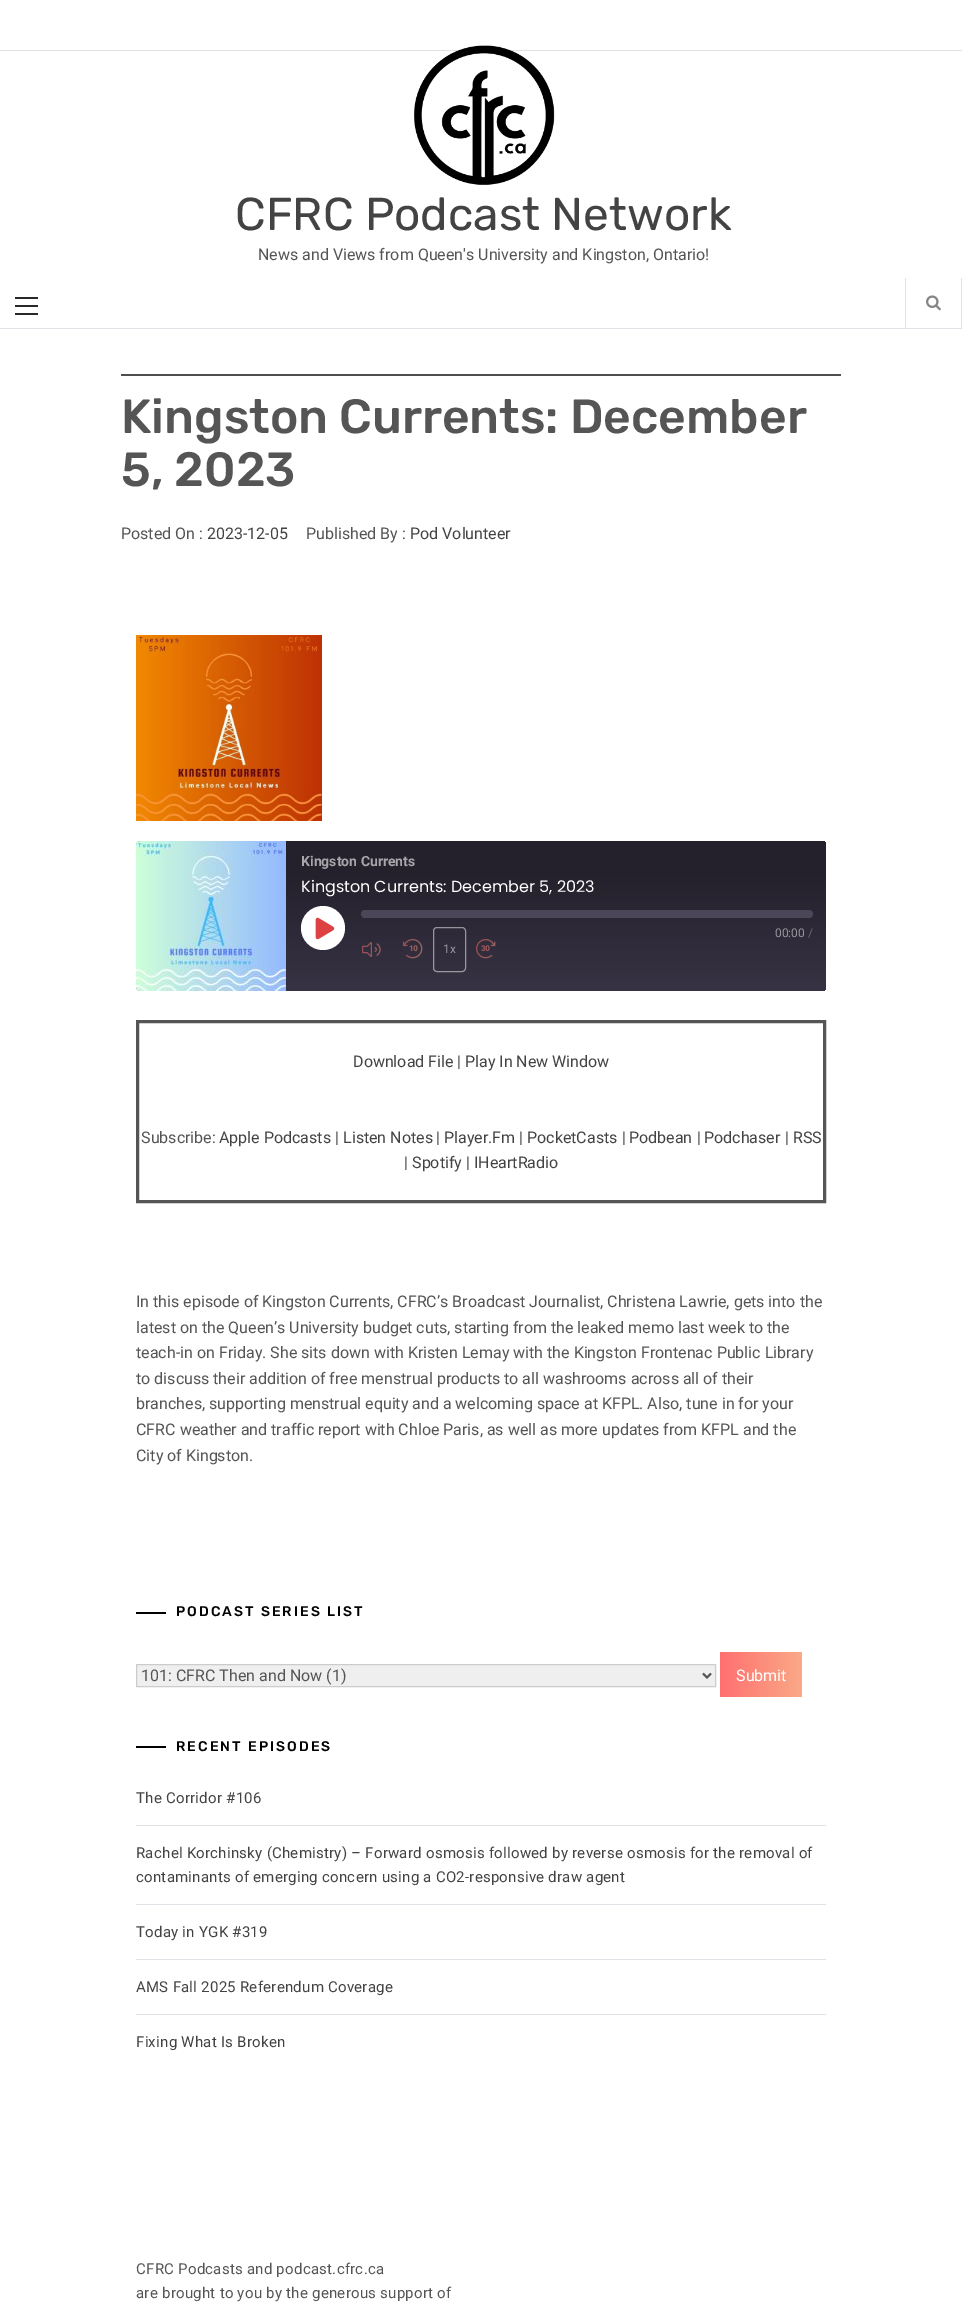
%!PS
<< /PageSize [962 2308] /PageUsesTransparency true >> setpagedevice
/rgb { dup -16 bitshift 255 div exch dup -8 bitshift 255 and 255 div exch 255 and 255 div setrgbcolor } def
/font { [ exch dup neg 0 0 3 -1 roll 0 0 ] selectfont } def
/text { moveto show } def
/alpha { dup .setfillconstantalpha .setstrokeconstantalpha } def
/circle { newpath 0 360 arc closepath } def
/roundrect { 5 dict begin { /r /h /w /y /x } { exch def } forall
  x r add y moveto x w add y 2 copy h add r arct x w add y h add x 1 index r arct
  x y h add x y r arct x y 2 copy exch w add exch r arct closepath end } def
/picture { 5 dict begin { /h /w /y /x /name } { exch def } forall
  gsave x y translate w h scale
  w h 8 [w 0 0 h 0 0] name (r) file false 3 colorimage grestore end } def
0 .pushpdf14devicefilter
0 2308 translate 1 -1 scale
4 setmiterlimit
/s1 { /Rubik-Regular 46 font 16#434343 rgb } def
/s2 { /Roboto-Regular 16 font 16#555555 rgb } def
/s3 { /Rubik-Medium 48 font 16#555555 rgb } def
/s4 { /Roboto-Regular 16 font 16#434343 rgb } def
/s5 { /Roboto-Bold 14 font 16#A7A6AB rgb } def
/s6 { /Poppins-Regular 16 font 16#FFFFFF rgb } def
/s7 { /Roboto-Regular 12 font 16#98969D rgb } def
/s8 { /Roboto-Regular 12 font 16#6D6A74 rgb } def
/s9 { /Roboto-Regular 16 font 16#FFFFFF rgb } def
16#FFFFFF rgb
0 0 962 2308 rectfill
16#E2E1E8 rgb
0 50 962 1 rectfill
0 328 962 1 rectfill
16#282828 rgb
15 305 23 2 rectfill
15 297 23 2 rectfill
15 313 23 2 rectfill
16#E2E1E8 rgb
961 278 1 50 rectfill
905 278 1 50 rectfill
(pic1.raw) 926 295 15 16 picture
(pic2.raw) 414 45 141 140 picture
s1
(CFRC Podcast Network) 235 230 text
s2
(News and Views from Queen's University and Kingston, Ontario!) 258 260 text
16#4E4E4E rgb
121 374 720 2 rectfill
s3
(Kingston Currents: December) 121 433 text
(5, 2023) 121 486 text
s2
(Posted On :) 121 539 text
s4
(2023-12-05) 207 539 text
s2
(Published By :) 306 539 text
s4
(Pod Volunteer) 410 539 text
(pic3.raw) 136 635 186 186 picture
gsave 136 841 690 150 4 roundrect clip newpath
<< /ShadingType 2 /ColorSpace /DeviceRGB /Coords [481 993 481 839] /Extend [true true] /Function << /FunctionType 3 /Domain [0 1] /Functions [<< /FunctionType 2 /Domain [0 1] /C0 [0.22 0.2 0.267] /C1 [0.22 0.2 0.267] /N 1 >> << /FunctionType 2 /Domain [0 1] /C0 [0.22 0.2 0.267] /C1 [0.141 0.129 0.173] /N 1 >> << /FunctionType 2 /Domain [0 1] /C0 [0.141 0.129 0.173] /C1 [0.141 0.129 0.173] /N 1 >>] /Bounds [0.01 0.78] /Encode [0 1 0 1 0 1] >> >> shfill grestore
(pic4.raw) 136 841 150 150 picture
s5
(Kingston Currents) 301 866 text
s6
(Kingston Currents: December 5, 2023) 301 892 text
323 928 22 circle fill
(pic5.raw) 315 917 20 23 picture
16#4C4659 rgb
361 910 452 8 4 roundrect fill
s7
(00:00) 775 937 text
s8
(/) 808 937 text
(pic6.raw) 362 942 19 15 picture
(pic7.raw) 403 939 20 20 picture
0.5 alpha
16#FFFFFF rgb
433.5 927.5 32 44 3.5 roundrect stroke
1 alpha
s7
(1x) 443 953 text
(pic8.raw) 476 939 20 20 picture
16#555555 rgb
3 setlinewidth
137.5 1021.5 687 180 rectstroke
s4
(Download File) 353 1067 text
s2
(|) 457 1067 text
s4
(Play In New Window) 465 1067 text
s2
(Subscribe:) 141 1143 text
s4
(Apple Podcasts) 219 1143 text
s2
(|) 335 1143 text
s4
(Listen Notes) 343 1143 text
s2
(|) 436 1143 text
s4
(Player.Fm) 444 1143 text
s2
(|) 519 1143 text
s4
(PocketCasts) 527 1143 text
s2
(|) 622 1143 text
s4
(Podbean) 629 1143 text
s2
(|) 697 1143 text
s4
(Podchaser) 704 1143 text
s2
(|) 785 1143 text
s4
(RSS) 793 1143 text
s2
(|) 404 1168 text
s4
(Spotify) 412 1168 text
s2
(|) 466 1168 text
s4
(IHeartRadio) 474 1168 text
s2
(In this episode of Kingston Currents, CFRC’s Broadcast Journalist, Christena Lawrie, gets into the) 136 1307 text
(latest on the Queen’s University budget cuts, starting from the leaked memo last week to the) 136 1333 text
(teach-in on Friday. She sits down with Kristen Lemay with the Kingston Frontenac Public Library) 136 1358 text
(to discuss their addition of free menstrual products to all washrooms across all of their) 136 1384 text
(branches, supporting menstrual equity and a welcoming space at KFPL. Also, tune in for your) 136 1409 text
(CFRC weather and traffic report with Chloe Paris, as well as more updates from KFPL and the) 136 1435 text
(City of Kingston.) 136 1461 text
16#000000 rgb
136 1612 30 2 rectfill
/Rubik-Medium 14 font
176 1616 moveto 2 0 (PODCAST SERIES LIST) ashow
16#EFEFEF rgb
136.5 1664.5 moveto 715.5 1664.5 lineto 715.5 1686.5 lineto 136.5 1686.5 lineto closepath gsave fill grestore
16#CCCCCC rgb
1 setlinewidth
stroke
16#555555 rgb
2 setlinewidth
703 1673.5 moveto 707 1677.5 lineto 711 1673.5 lineto stroke
s2
(101: CFRC Then and Now \(1\)) 141 1681 text
gsave 720 1652 82 45 3 roundrect clip newpath
<< /ShadingType 2 /ColorSpace /DeviceRGB /Coords [720 1675 802 1675] /Extend [true true] /Function << /FunctionType 2 /Domain [0 1] /C0 [1 0.439 0.439] /C1 [0.98 0.663 0.529] /N 1 >> >> shfill grestore
s9
(Submit) 736 1681 text
16#000000 rgb
136 1746 30 2 rectfill
/Rubik-Medium 14 font
176 1751 moveto 2 0 (RECENT EPISODES) ashow
16#E2E1E8 rgb
136 1825 690 1 rectfill
/Roboto-Regular 15 font
16#434343 rgb
136 1803 moveto 0.25 0 (The Corridor #106) ashow
16#E2E1E8 rgb
136 1904 690 1 rectfill
16#434343 rgb
136 1858 moveto 0.25 0 (Rachel Korchinsky \(Chemistry\) – Forward osmosis followed by reverse osmosis for the removal of) ashow
136 1882 moveto 0.25 0 (contaminants of emerging concern using a CO2-responsive draw agent) ashow
16#E2E1E8 rgb
136 1959 690 1 rectfill
16#434343 rgb
136 1937 moveto 0.25 0 (Today in YGK #319) ashow
16#E2E1E8 rgb
136 2014 690 1 rectfill
16#434343 rgb
136 1992 moveto 0.25 0 (AMS Fall 2025 Referendum Coverage) ashow
136 2047 moveto 0.25 0 (Fixing What Is Broken) ashow
16#555555 rgb
136 2274 moveto 0.25 0 (CFRC Podcasts and podcast.cfrc.ca) ashow
136 2298 moveto 0.25 0 (are brought to you by the generous support of) ashow
.poppdf14devicefilter showpage
